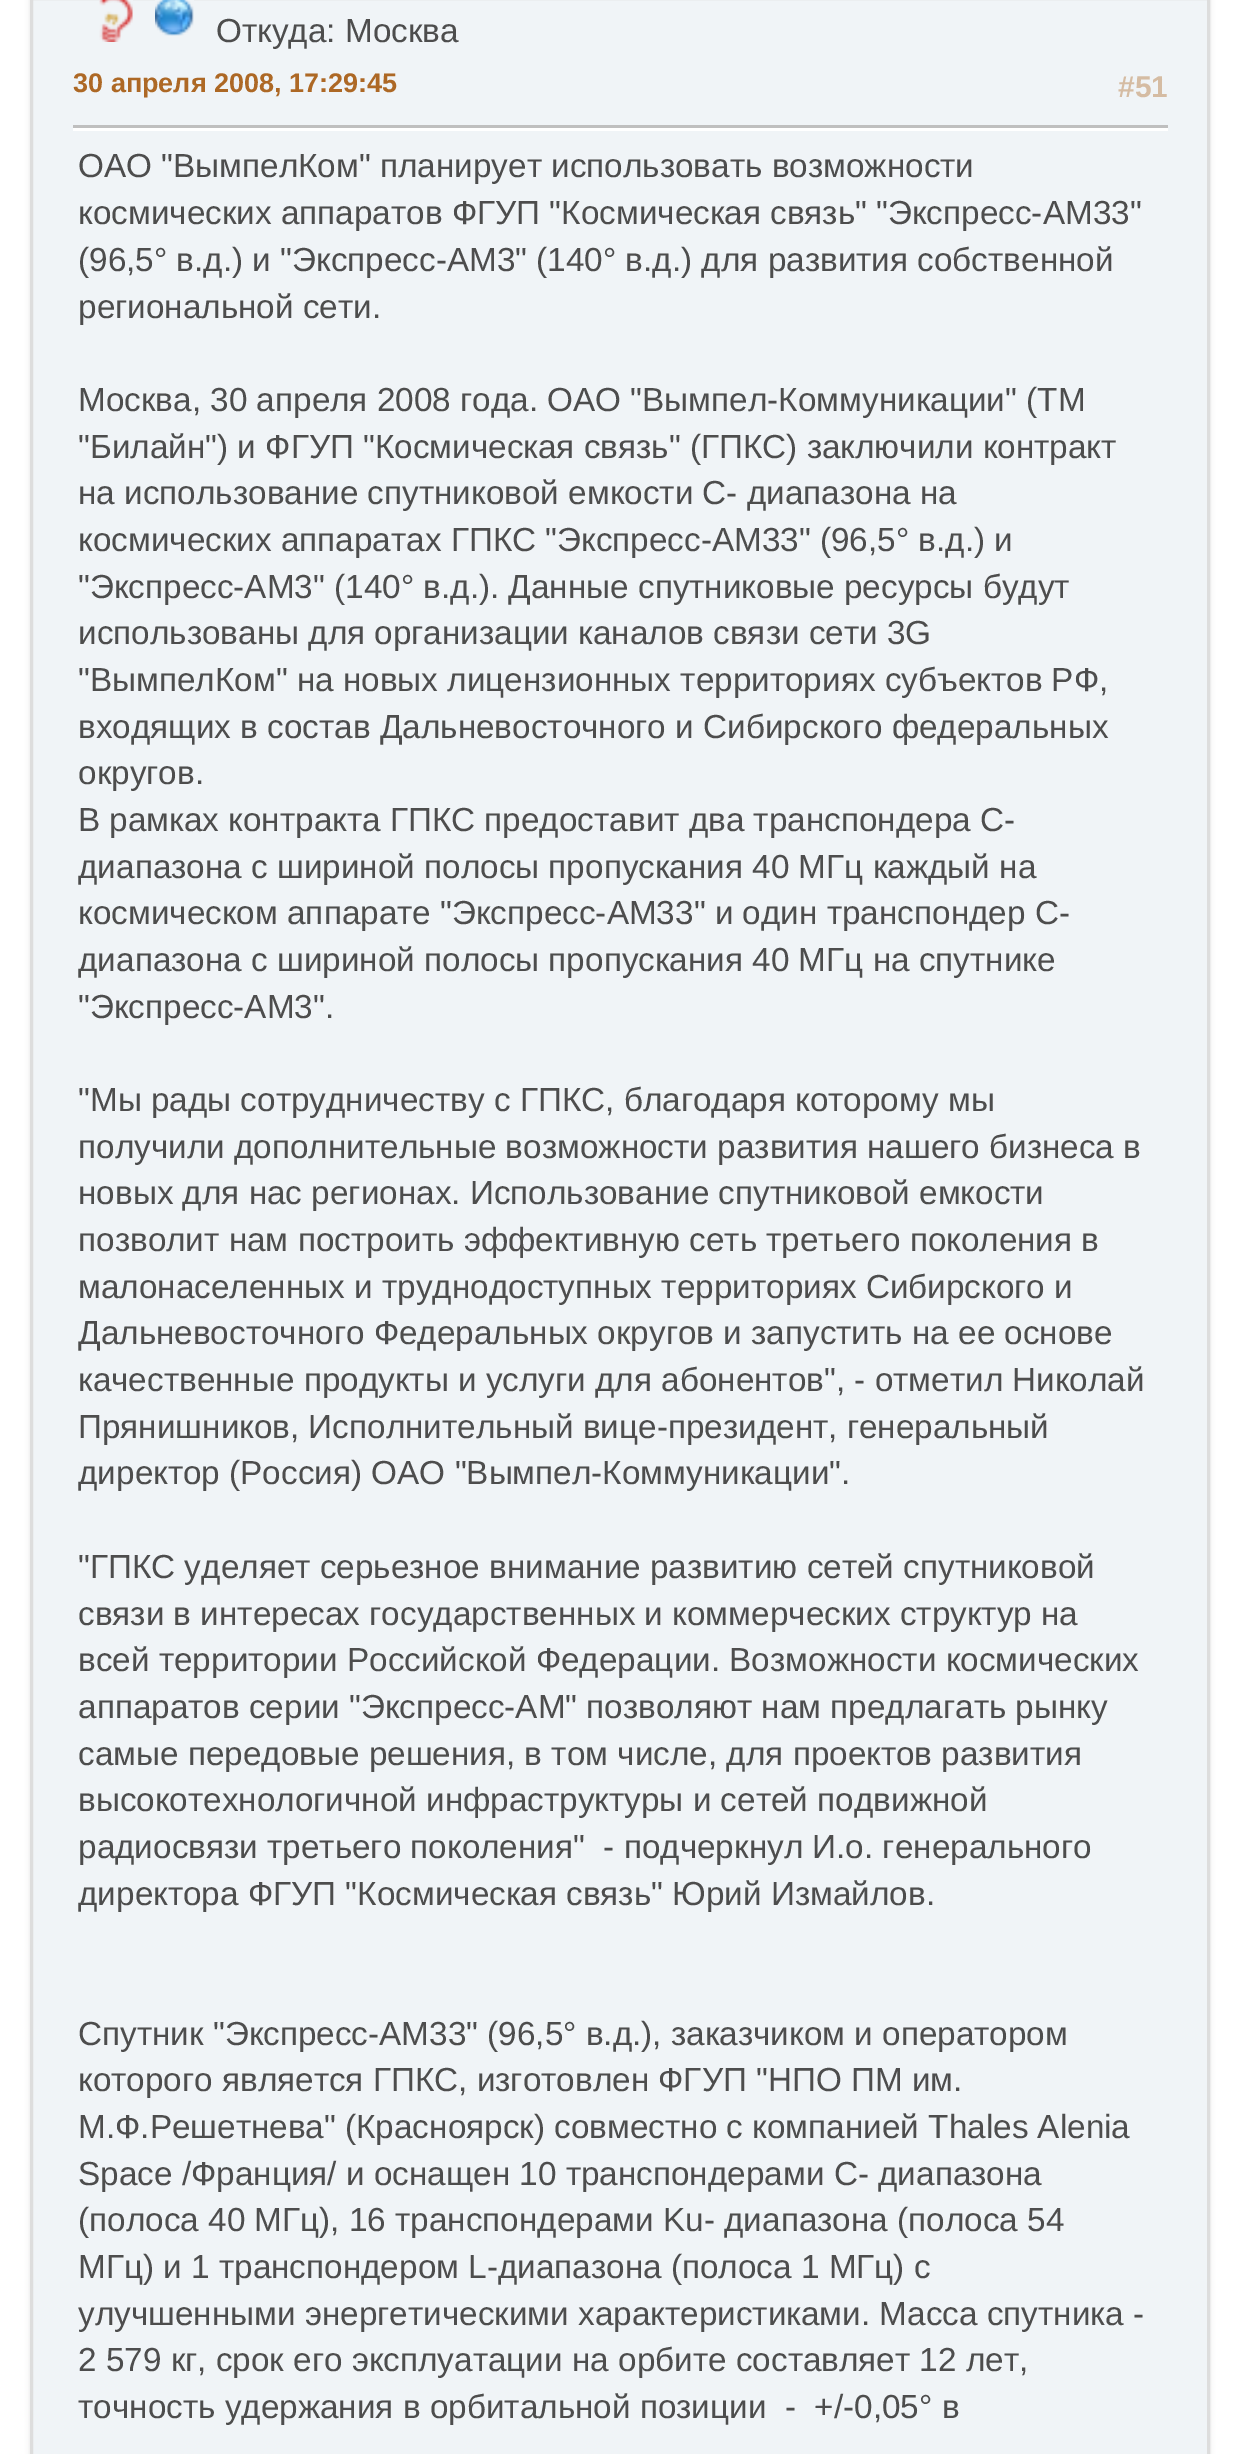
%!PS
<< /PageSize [1239 2454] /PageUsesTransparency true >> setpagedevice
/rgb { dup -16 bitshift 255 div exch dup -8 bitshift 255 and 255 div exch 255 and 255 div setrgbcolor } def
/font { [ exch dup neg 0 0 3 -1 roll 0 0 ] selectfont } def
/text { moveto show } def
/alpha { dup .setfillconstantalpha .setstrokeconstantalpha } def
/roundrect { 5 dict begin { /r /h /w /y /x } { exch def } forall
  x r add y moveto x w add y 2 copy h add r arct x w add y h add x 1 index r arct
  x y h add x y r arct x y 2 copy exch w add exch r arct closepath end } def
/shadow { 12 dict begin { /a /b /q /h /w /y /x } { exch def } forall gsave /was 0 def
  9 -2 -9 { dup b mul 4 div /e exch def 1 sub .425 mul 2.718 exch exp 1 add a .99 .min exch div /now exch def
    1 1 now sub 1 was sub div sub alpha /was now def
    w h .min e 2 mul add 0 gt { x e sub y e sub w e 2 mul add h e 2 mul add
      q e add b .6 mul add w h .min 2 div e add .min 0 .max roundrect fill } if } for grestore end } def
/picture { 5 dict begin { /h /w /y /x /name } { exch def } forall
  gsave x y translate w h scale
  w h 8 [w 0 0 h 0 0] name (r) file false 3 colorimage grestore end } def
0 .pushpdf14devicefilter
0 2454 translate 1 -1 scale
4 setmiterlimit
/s1 { /LiberationSans-Regular 33.3 font 16#4D4D4D rgb } def
/s2 { /LiberationSans-Bold 27 font 16#AD6825 rgb } def
/s3 { /LiberationSans-Bold 30 font 16#D5BCA3 rgb } def
16#FFFFFF rgb
0 0 1239 2454 rectfill
16#000000 rgb
30 -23 1180 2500 15 2.5 0.1 shadow
16#F0F4F7 rgb
31.5 -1.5 moveto 1208.5 -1.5 lineto 1208.5 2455.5 lineto 31.5 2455.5 lineto closepath gsave fill grestore
16#DDDDDD rgb
3 setlinewidth
stroke
(pic1.raw) 99 0 34 42 picture
(pic2.raw) 155 0 39 36 picture
s1
(Откуда: Москва) 216 42 text
s2
(30 апреля 2008, 17:29:45) 73 92 text
s3
(#51) 1118 97 text
16#FFFFFF rgb
73 128 1095 3 rectfill
16#BFBFBF rgb
73 125 1095 3 rectfill
s1
(ОАО "ВымпелКом" планирует использовать возможности) 78 177 text
(космических аппаратов ФГУП "Космическая связь" "Экспресс-АМ33") 78 224 text
(\(96,5° в.д.\) и "Экспресс-АМ3" \(140° в.д.\) для развития собственной) 78 271 text
(региональной сети.) 78 318 text
(Москва, 30 апреля 2008 года. ОАО "Вымпел-Коммуникации" \(ТМ) 78 411 text
("Билайн"\) и ФГУП "Космическая связь" \(ГПКС\) заключили контракт) 78 458 text
(на использование спутниковой емкости С- диапазона на) 78 504 text
(космических аппаратах ГПКС "Экспресс-АМ33" \(96,5° в.д.\) и) 78 551 text
("Экспресс-АМ3" \(140° в.д.\). Данные спутниковые ресурсы будут) 78 598 text
(использованы для организации каналов связи сети 3G) 78 644 text
("ВымпелКом" на новых лицензионных территориях субъектов РФ,) 78 691 text
(входящих в состав Дальневосточного и Сибирского федеральных) 78 738 text
(округов.) 78 784 text
(В рамках контракта ГПКС предоставит два транспондера С-) 78 831 text
(диапазона с шириной полосы пропускания 40 МГц каждый на) 78 878 text
(космическом аппарате "Экспресс-АМ33" и один транспондер С-) 78 924 text
(диапазона с шириной полосы пропускания 40 МГц на спутнике) 78 971 text
("Экспресс-АМ3".) 78 1018 text
("Мы рады сотрудничеству с ГПКС, благодаря которому мы) 78 1111 text
(получили дополнительные возможности развития нашего бизнеса в) 78 1158 text
(новых для нас регионах. Использование спутниковой емкости) 78 1204 text
(позволит нам построить эффективную сеть третьего поколения в) 78 1251 text
(малонаселенных и труднодоступных территориях Сибирского и) 78 1298 text
(Дальневосточного Федеральных округов и запустить на ее основе) 78 1344 text
(качественные продукты и услуги для абонентов", - отметил Николай) 78 1391 text
(Прянишников, Исполнительный вице-президент, генеральный) 78 1438 text
(директор \(Россия\) ОАО "Вымпел-Коммуникации".) 78 1484 text
("ГПКС уделяет серьезное внимание развитию сетей спутниковой) 78 1578 text
(связи в интересах государственных и коммерческих структур на) 78 1625 text
(всей территории Российской Федерации. Возможности космических) 78 1671 text
(аппаратов серии "Экспресс-АМ" позволяют нам предлагать рынку) 78 1718 text
(самые передовые решения, в том числе, для проектов развития) 78 1765 text
(высокотехнологичной инфраструктуры и сетей подвижной) 78 1811 text
(радиосвязи третьего поколения"  - подчеркнул И.о. генерального) 78 1858 text
(директора ФГУП "Космическая связь" Юрий Измайлов.) 78 1905 text
(Спутник "Экспресс-АМ33" \(96,5° в.д.\), заказчиком и оператором) 78 2045 text
(которого является ГПКС, изготовлен ФГУП "НПО ПМ им.) 78 2091 text
(М.Ф.Решетнева" \(Красноярск\) совместно с компанией Thales Alenia) 78 2138 text
(Space /Франция/ и оснащен 10 транспондерами C- диапазона) 78 2185 text
(\(полоса 40 МГц\), 16 транспондерами Ku- диапазона \(полоса 54) 78 2231 text
(МГц\) и 1 транспондером L-диапазона \(полоса 1 МГц\) с) 78 2278 text
(улучшенными энергетическими характеристиками. Масса спутника -) 78 2325 text
(2 579 кг, срок его эксплуатации на орбите составляет 12 лет,) 78 2371 text
(точность удержания в орбитальной позиции  -  +/-0,05° в) 78 2418 text
.poppdf14devicefilter showpage
